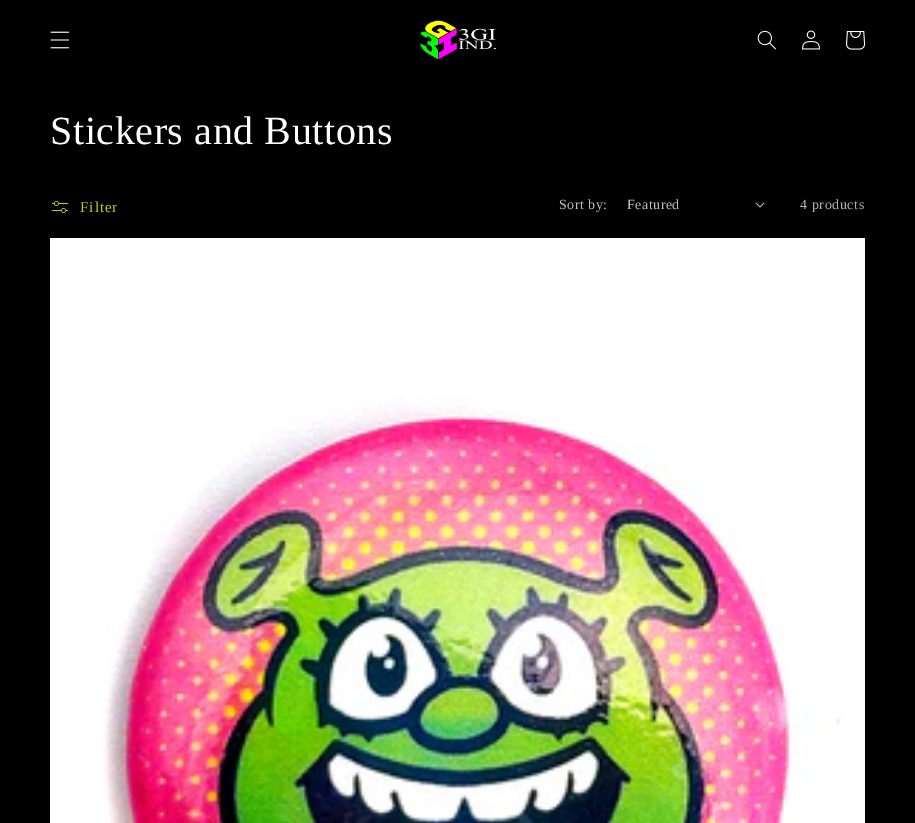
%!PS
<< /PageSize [915 823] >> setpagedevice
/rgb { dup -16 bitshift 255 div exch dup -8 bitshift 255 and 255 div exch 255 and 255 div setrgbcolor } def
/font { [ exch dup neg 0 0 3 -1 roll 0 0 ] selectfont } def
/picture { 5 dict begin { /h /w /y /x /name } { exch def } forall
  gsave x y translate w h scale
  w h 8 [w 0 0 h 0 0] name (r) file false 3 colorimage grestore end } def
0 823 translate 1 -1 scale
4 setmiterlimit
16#000000 rgb
0 0 915 823 rectfill
(pic1.raw) 50 31 20 18 picture
(pic2.raw) 420 20 76 40 picture
(pic3.raw) 757 30 19 20 picture
(pic4.raw) 802 30 18 20 picture
(pic5.raw) 846 31 20 19 picture
/LiberationSerif-Regular 40 font
16#FFFFFF rgb
50 144 moveto 0.6 0 (Stickers and Buttons) ashow
(pic6.raw) 52 201 16 12 picture
/LiberationSerif-Regular 15 font
16#C1D602 rgb
80 212 moveto 1 0 (Filter) ashow
/LiberationSerif-Regular 14 font
16#BFBFBF rgb
559 209 moveto 0.5 0 (Sort by:) ashow
627 209 moveto 0.5 0 (Featured) ashow
(pic7.raw) 755 202 10 6 picture
16#B3B3B3 rgb
800 209 moveto 0.6 0 (4 products) ashow
(pic8.raw) 50 238 815 585 picture
showpage
